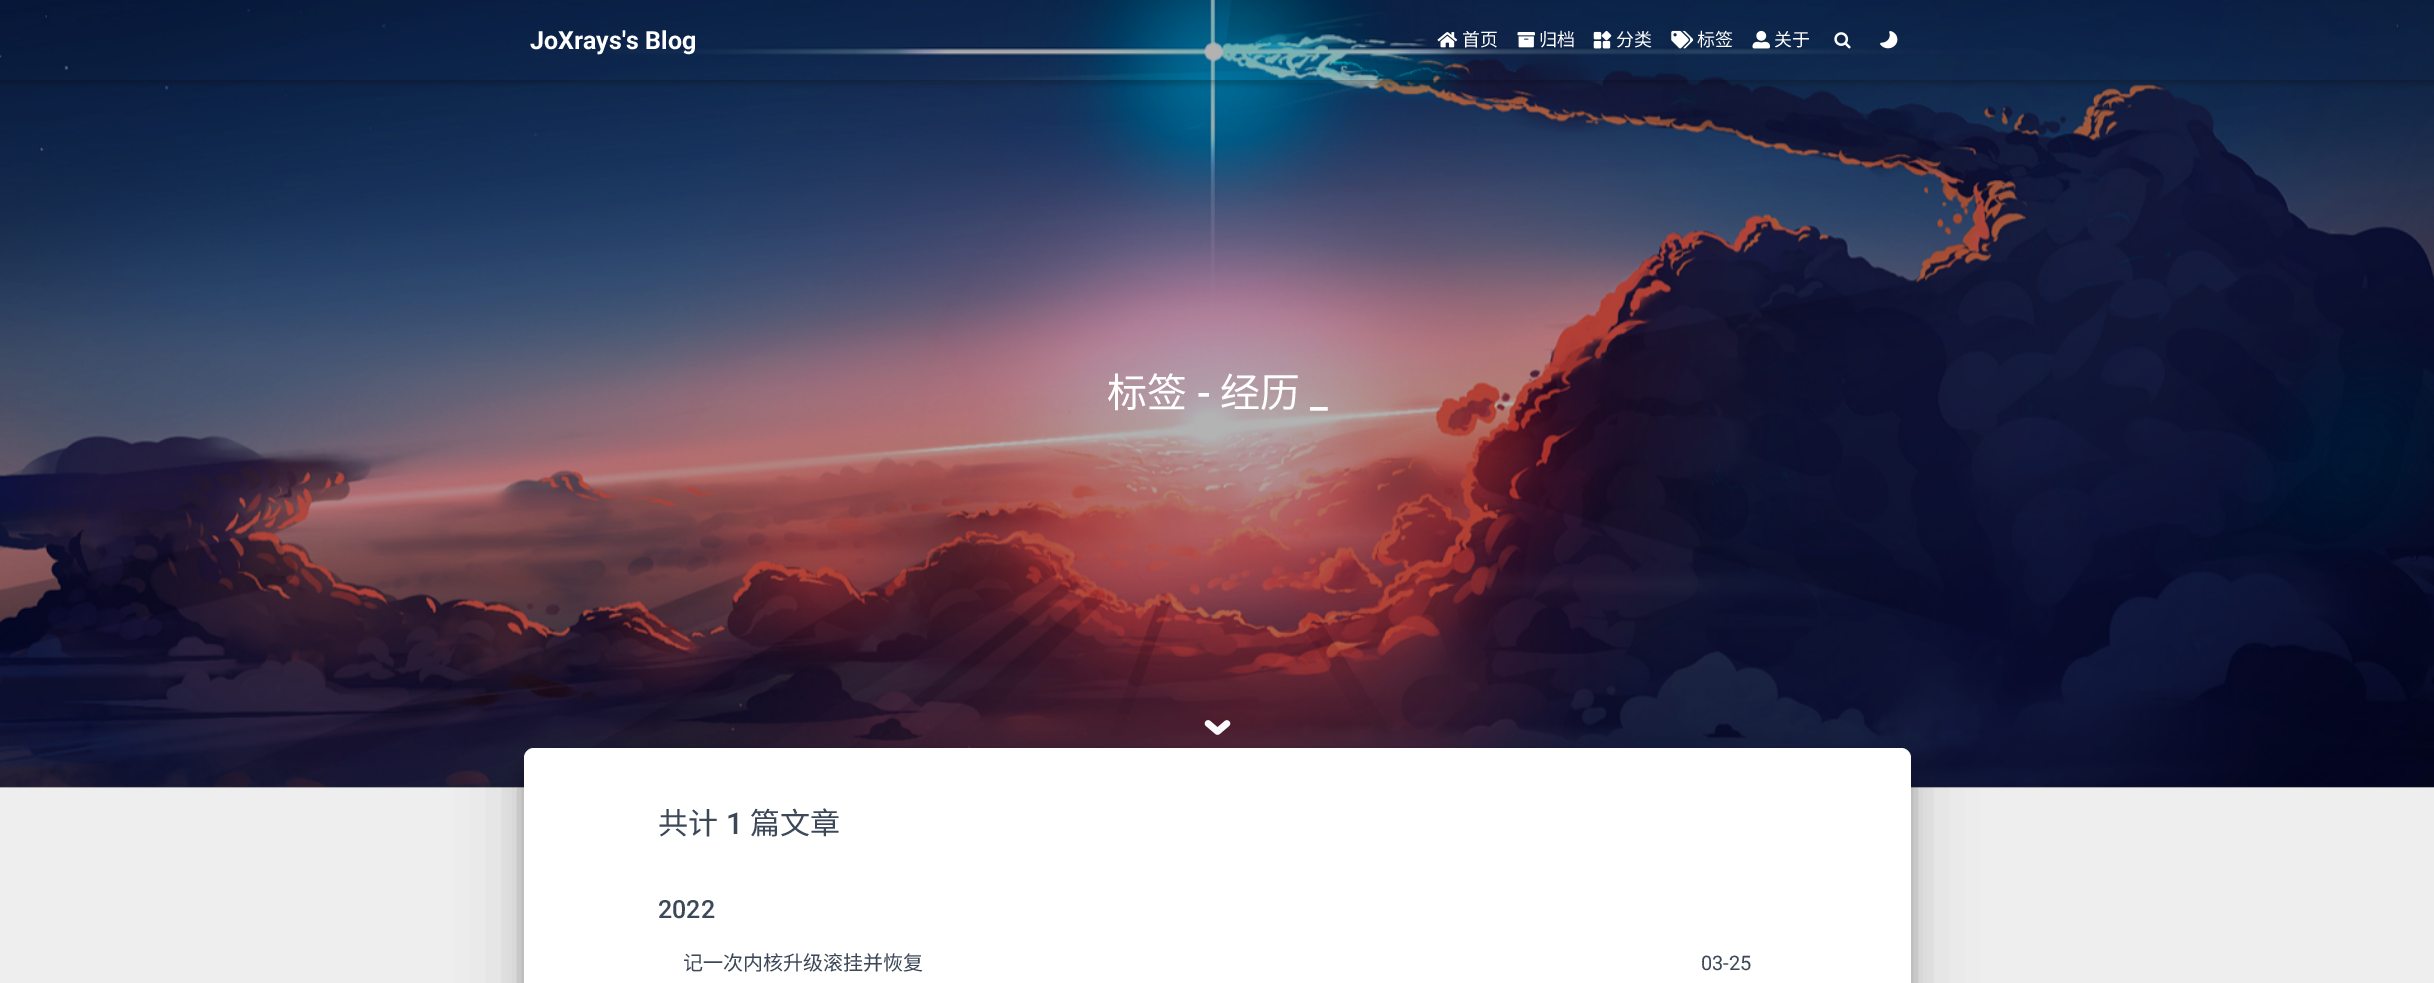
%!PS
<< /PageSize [2434 983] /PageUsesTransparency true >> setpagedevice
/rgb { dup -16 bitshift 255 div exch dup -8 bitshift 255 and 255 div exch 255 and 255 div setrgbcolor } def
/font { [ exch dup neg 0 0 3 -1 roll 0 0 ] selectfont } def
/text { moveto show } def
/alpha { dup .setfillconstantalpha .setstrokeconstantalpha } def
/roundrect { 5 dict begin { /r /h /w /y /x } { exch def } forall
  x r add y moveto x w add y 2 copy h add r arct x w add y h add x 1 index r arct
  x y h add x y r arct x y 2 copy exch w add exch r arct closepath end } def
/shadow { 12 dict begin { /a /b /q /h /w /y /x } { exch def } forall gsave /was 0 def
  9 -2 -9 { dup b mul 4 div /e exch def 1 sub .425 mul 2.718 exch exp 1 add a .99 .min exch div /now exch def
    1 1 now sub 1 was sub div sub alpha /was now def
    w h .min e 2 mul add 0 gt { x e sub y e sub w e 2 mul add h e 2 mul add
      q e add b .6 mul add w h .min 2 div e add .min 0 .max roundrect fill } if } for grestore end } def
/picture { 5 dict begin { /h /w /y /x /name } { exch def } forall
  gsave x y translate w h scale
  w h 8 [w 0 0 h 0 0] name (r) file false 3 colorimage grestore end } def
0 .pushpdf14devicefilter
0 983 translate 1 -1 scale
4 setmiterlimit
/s1 { /Roboto-Bold 25 font 16#FFFFFF rgb } def
/s2 { /NotoSansCJKSC-Regular 18 font 16#FFFFFF rgb } def
/s3 { /NotoSansCJKSC-Regular 40 font 16#FFFFFF rgb } def
/s4 { /Roboto-Medium 40 font 16#FFFFFF rgb } def
/s5 { /NotoSansCJKSC-Regular 30 font 16#3C4858 rgb } def
/s6 { /Roboto-Medium 30 font 16#3C4858 rgb } def
/s7 { /Roboto-Medium 25 font 16#3C4858 rgb } def
/s8 { /NotoSansCJKSC-Regular 20 font 16#3C4858 rgb } def
/s9 { /Roboto-Regular 20 font 16#3C4858 rgb } def
16#EEEEEE rgb
0 0 2434 983 rectfill
16#A7A7A7 rgb
0 786 2434 2 rectfill
(pic8.raw) 0 0 2434 787 picture
gsave
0 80 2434 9 rectclip
16#000000 rgb
0 3 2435 80 0 6 0.12 shadow
grestore
gsave
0 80 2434 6 rectclip
16#000000 rgb
0 3 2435 80 0 3 0.16 shadow
grestore
s1
(JoXrays's Blog) 530 49 text
(pic1.raw) 1437 32 21 16 picture
s2
(首页) 1462 46 text
(pic2.raw) 1517 32 18 16 picture
(归档) 1539 46 text
(pic3.raw) 1593 31 19 18 picture
(分类) 1616 46 text
(pic4.raw) 1671 30 23 19 picture
(标签) 1697 46 text
(pic5.raw) 1752 30 18 19 picture
(关于) 1774 46 text
(pic6.raw) 1834 32 17 17 picture
(pic7.raw) 1880 31 18 18 picture
s3
(标签) 1107 407 text
s4
(-) 1197 407 text
s3
(经历) 1220 407 text
s4
(_) 1310 407 text
(pic9.raw) 1204 720 27 15 picture
16#000000 rgb
524 769 1387 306 10 31 0.19 shadow
524 763 1387 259 10 9.5 0.24 shadow
16#FFFFFF rgb
524 748 1387 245 10 roundrect fill
s5
(共计) 658 834 text
s6
(1) 726 834 text
s5
(篇文章) 750 834 text
s7
(2022) 658 918 text
s8
(记一次内核升级滚挂并恢复) 683 970 text
s9
(03-25) 1701 970 text
.poppdf14devicefilter showpage
